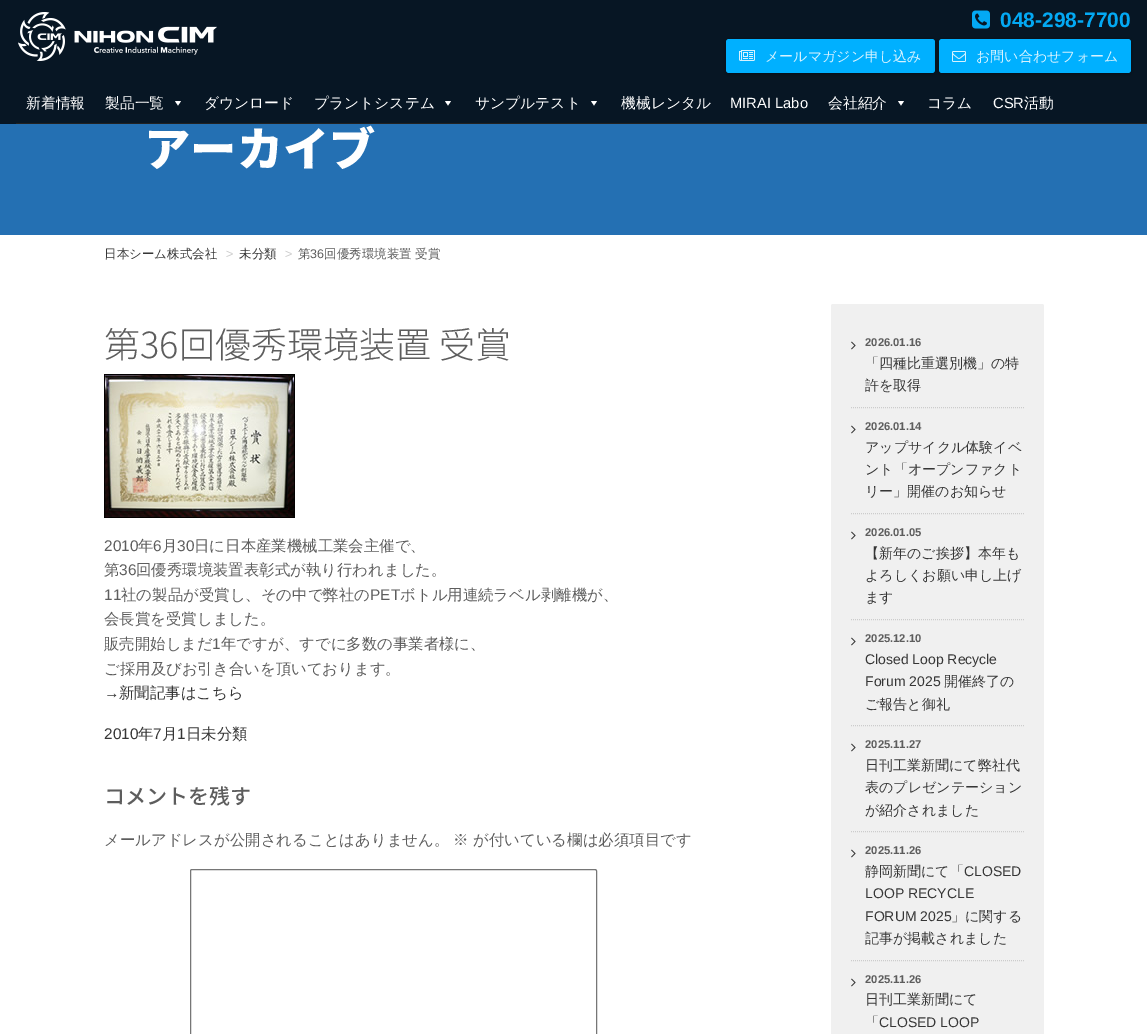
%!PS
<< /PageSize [1147 1034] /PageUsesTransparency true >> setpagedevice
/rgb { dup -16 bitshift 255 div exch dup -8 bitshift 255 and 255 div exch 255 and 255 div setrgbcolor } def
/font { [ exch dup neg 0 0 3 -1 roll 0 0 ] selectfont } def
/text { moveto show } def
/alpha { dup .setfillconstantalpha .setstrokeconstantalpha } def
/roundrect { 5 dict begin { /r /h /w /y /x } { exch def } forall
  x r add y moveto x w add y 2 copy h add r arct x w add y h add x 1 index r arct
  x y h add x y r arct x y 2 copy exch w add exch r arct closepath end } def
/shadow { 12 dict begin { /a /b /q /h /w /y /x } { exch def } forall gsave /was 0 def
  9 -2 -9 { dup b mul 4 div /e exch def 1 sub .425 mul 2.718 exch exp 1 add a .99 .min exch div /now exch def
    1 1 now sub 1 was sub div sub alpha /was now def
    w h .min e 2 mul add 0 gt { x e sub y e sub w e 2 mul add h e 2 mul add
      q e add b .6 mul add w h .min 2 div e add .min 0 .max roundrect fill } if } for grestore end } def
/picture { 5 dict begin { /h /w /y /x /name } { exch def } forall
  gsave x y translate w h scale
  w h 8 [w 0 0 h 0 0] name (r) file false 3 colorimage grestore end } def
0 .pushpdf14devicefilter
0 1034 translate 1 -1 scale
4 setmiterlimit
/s1 { /LiberationSans-Bold 21 font 16#03A9F4 rgb } def
/s2 { /WenQuanYiZenHei-Medium 14 font 16#D6F2FF rgb } def
/s3 { /WenQuanYiZenHei-Medium 14.75 font 16#FFFFFF rgb } def
/s4 { /LiberationSans-Regular 14.75 font 16#FFFFFF rgb } def
/s5 { /NotoSansJP-Black 46.25 font 16#FFFFFF rgb } def
/s6 { /WenQuanYiZenHei-Medium 12.5 font 16#363636 rgb } def
/s7 { /LiberationSans-Regular 12.5 font 16#CCCCCC rgb } def
/s8 { /WenQuanYiZenHei-Medium 12.5 font 16#5D5D5D rgb } def
/s9 { /LiberationSans-Regular 12.5 font 16#5D5D5D rgb } def
/s10 { /NotoSansJP-Light 36 font 16#5D5D5D rgb } def
/s11 { /LiberationSans-Regular 15.4 font 16#5D5D5D rgb } def
/s12 { /WenQuanYiZenHei-Medium 15.4 font 16#5D5D5D rgb } def
/s13 { /LiberationSans-Regular 15.4 font 16#363636 rgb } def
/s14 { /WenQuanYiZenHei-Medium 15.4 font 16#363636 rgb } def
/s15 { /NotoSansJP-Medium 21 font 16#5D5D5D rgb } def
/s16 { /LiberationSans-Bold 11.25 font 16#5D5D5D rgb } def
/s17 { /WenQuanYiZenHei-Medium 14 font 16#363636 rgb } def
/s18 { /LiberationSans-Regular 14 font 16#363636 rgb } def
16#2470B3 rgb
0 0 1147 1034 rectfill
16#071624 rgb
0 0 1147 124 rectfill
(pic1.raw) 18 12 199 49 picture
(pic2.raw) 972 10 18 19 picture
s1
(048-298-7700) 1000 27 text
16#000000 rgb
726 40 209 34 3 2.5 0.4 shadow
16#00B0FF rgb
726 39 209 34 3 roundrect fill
(pic3.raw) 739 50 16 11 picture
s2
(メールマガジン申し込み) 765 61 text
16#000000 rgb
939 40 192 34 3 2.5 0.4 shadow
16#00B0FF rgb
939 39 192 34 3 roundrect fill
(pic4.raw) 952 51 14 11 picture
s2
(お問い合わせフォーム) 976 61 text
s3
(新着情報) 26 108 text
(製品一覧) 105 108 text
181 101 moveto 178 105.5 lineto 175 101 lineto closepath fill
(ダウンロード) 204 108 text
(プラントシステム) 314 108 text
451 101 moveto 448 105.5 lineto 445 101 lineto closepath fill
(サンプルテスト) 475 108 text
597 101 moveto 594 105.5 lineto 591 101 lineto closepath fill
(機械レンタル) 621 108 text
s4
(MIRAI Labo) 730 108 text
s3
(会社紹介) 828 108 text
904 101 moveto 901 105.5 lineto 898 101 lineto closepath fill
(コラム) 927 108 text
s4
(CSR) 993 108 text
s3
(活動) 1024 108 text
16#222222 rgb
16 123 1131 1 rectfill
s5
(アーカイブ) 144 166 text
0 235 1147 799 rectfill
s6
(日本シーム株式会社) 104 258 text
s7
(>) 226 258 text
s6
(未分類) 239 258 text
s7
(>) 285 258 text
s8
(第) 298 258 text
s9
(36) 310 258 text
s8
(回優秀環境装置 受賞) 324 258 text
s10
(第36回優秀環境装置 受賞) 104 358 text
(pic5.raw) 104 374 191 144 picture
s11
(2010) 104 551 text
s12
(年) 138 551 text
s11
(6) 153 551 text
s12
(月) 162 551 text
s11
(30) 177 551 text
s12
(日に日本産業機械工業会主催で、) 194 551 text
(第) 104 575 text
s11
(36) 119 575 text
s12
(回優秀環境装置表彰式が執り行われました。) 136 575 text
s11
(11) 104 600 text
s12
(社の製品が受賞し、その中で弊社の) 121 600 text
s11
(PET) 370 600 text
s12
(ボトル用連続ラベル剥離機が、) 400 600 text
(会長賞を受賞しました。) 104 624 text
(販売開始しまだ) 104 649 text
s11
(1) 212 649 text
s12
(年ですが、すでに多数の事業者様に、) 221 649 text
(ご採用及びお引き合いを頂いております。) 104 674 text
s13
(→) 104 698 text
s14
(新聞記事はこちら) 119 698 text
s13
(2010) 104 739 text
s14
(年) 138 739 text
s13
(7) 153 739 text
s14
(月) 162 739 text
s13
(1) 177 739 text
s14
(日未分類) 186 739 text
s15
(コメントを残す) 104 804 text
s12
(メールアドレスが公開されることはありません。) 104 845 text
(※) 453 845 text
(が付いている欄は必須項目です) 473 845 text
16#767676 rgb
190.5 869.5 406 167 1.5 roundrect stroke
16#F0F0F0 rgb
831 304 213 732 2 roundrect fill
s16
(2026.01.16) 865 346 text
(pic6.raw) 851 341 5 9 picture
s17
(「四種比重選別機」の特) 865 368 text
(許を取得) 865 390 text
16#CCCCCC rgb
[1 1] 0 setdash
851 407.5 moveto 1024 407.5 lineto stroke
s16
(2026.01.14) 865 430 text
(pic6.raw) 851 425 5 9 picture
s17
(アップサイクル体験イベ) 865 452 text
(ント「オープンファクト) 865 474 text
(リー」開催のお知らせ) 865 496 text
16#CCCCCC rgb
851 513.5 moveto 1024 513.5 lineto stroke
s16
(2026.01.05) 865 536 text
(pic6.raw) 851 531 5 9 picture
s17
(【新年のご挨拶】本年も) 865 558 text
(よろしくお願い申し上げ) 865 580 text
(ます) 865 602 text
16#CCCCCC rgb
851 619.5 moveto 1024 619.5 lineto stroke
s16
(2025.12.10) 865 642 text
(pic6.raw) 851 637 5 9 picture
s18
(Closed Loop Recycle) 865 664 text
(Forum 2025) 865 686 text
s17
(開催終了の) 944 686 text
(ご報告と御礼) 865 709 text
16#CCCCCC rgb
851 725.5 moveto 1024 725.5 lineto stroke
s16
(2025.11.27) 865 748 text
(pic6.raw) 851 743 5 9 picture
s17
(日刊工業新聞にて弊社代) 865 770 text
(表のプレゼンテーション) 865 792 text
(が紹介されました) 865 815 text
16#CCCCCC rgb
851 831.5 moveto 1024 831.5 lineto stroke
s16
(2025.11.26) 865 854 text
(pic6.raw) 851 849 5 9 picture
s17
(静岡新聞にて「) 865 876 text
s18
(CLOSED) 964 876 text
(LOOP RECYCLE) 865 898 text
(FORUM 2025) 865 921 text
s17
(」に関する) 951 921 text
(記事が掲載されました) 865 943 text
16#CCCCCC rgb
851 960.5 moveto 1024 960.5 lineto stroke
s16
(2025.11.26) 865 983 text
(pic6.raw) 851 978 5 9 picture
s17
(日刊工業新聞にて) 865 1004 text
(「) 865 1027 text
s18
(CLOSED LOOP) 879 1027 text
.poppdf14devicefilter showpage
